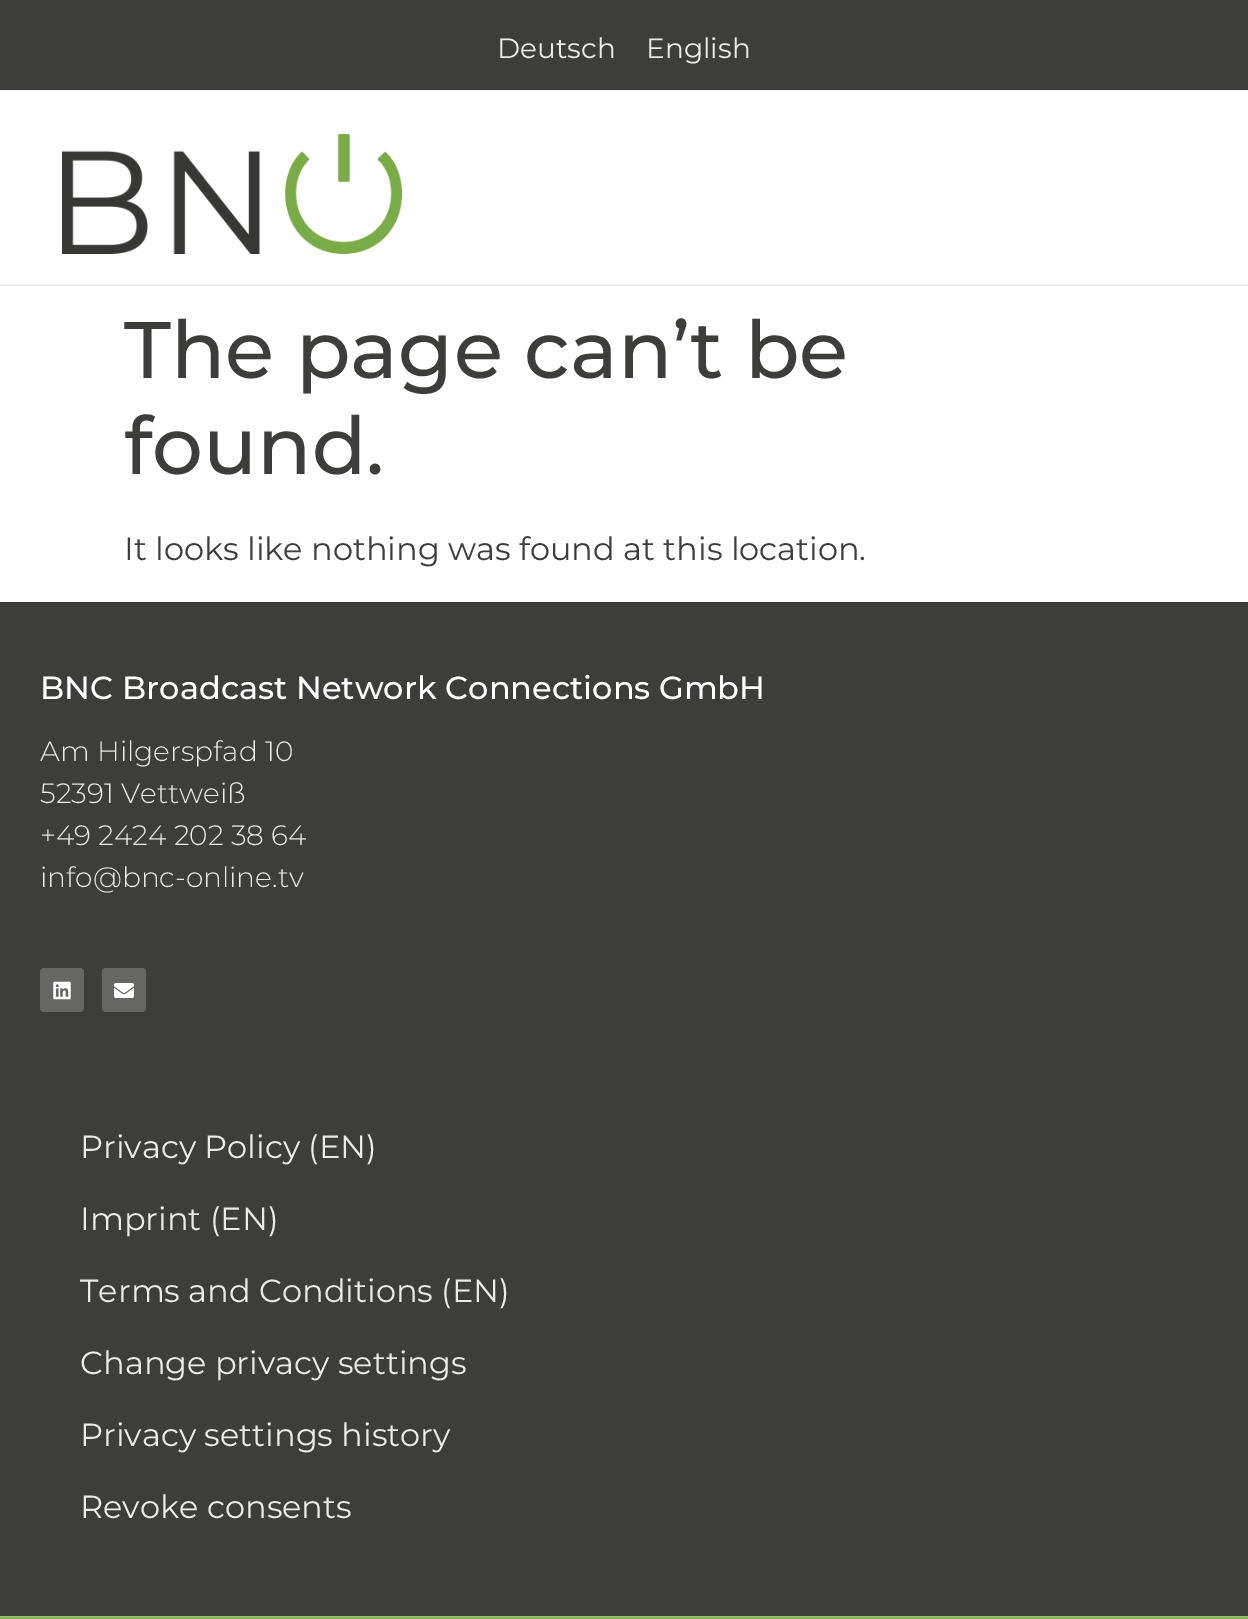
%!PS
<< /PageSize [1248 1619] >> setpagedevice
/rgb { dup -16 bitshift 255 div exch dup -8 bitshift 255 and 255 div exch 255 and 255 div setrgbcolor } def
/font { [ exch dup neg 0 0 3 -1 roll 0 0 ] selectfont } def
/text { moveto show } def
/roundrect { 5 dict begin { /r /h /w /y /x } { exch def } forall
  x r add y moveto x w add y 2 copy h add r arct x w add y h add x 1 index r arct
  x y h add x y r arct x y 2 copy exch w add exch r arct closepath end } def
/picture { 5 dict begin { /h /w /y /x /name } { exch def } forall
  gsave x y translate w h scale
  w h 8 [w 0 0 h 0 0] name (r) file false 3 colorimage grestore end } def
0 1619 translate 1 -1 scale
4 setmiterlimit
/s1 { /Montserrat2-Thin 28 font 16#EBEBE8 rgb } def
/s2 { /Montserrat-Thin 80 font 16#3D3D3C rgb } def
/s3 { /Montserrat2-Thin 32 font 16#3D3D3C rgb } def
/s4 { /Montserrat-Thin 32 font 16#FFFFFF rgb } def
/s5 { /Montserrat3-Thin 28 font 16#EBEBE8 rgb } def
/s6 { /Montserrat2-Thin 32 font 16#EBEBE8 rgb } def
16#FFFFFF rgb
0 0 1248 1619 rectfill
16#3D3D3C rgb
0 0 1248 90 rectfill
s1
(Deutsch) 497 58 text
(English) 646 58 text
0 284 1248 2 rectfill
(pic1.raw) 62 134 340 120 picture
s2
(The page can’t be) 124 378 text
(found.) 124 474 text
s3
(It looks like nothing was found at this location.) 124 560 text
0 602 1248 1014 rectfill
s4
(BNC Broadcast Network Connections GmbH) 40 699 text
s5
(Am Hilgerspfad 10) 40 761 text
(52391 Vettweiß) 40 803 text
(+49 2424 202 38 64) 40 845 text
(info@bnc-online.tv) 40 887 text
16#666665 rgb
40 968 44 44 4 roundrect fill
(pic2.raw) 53 981 18 19 picture
102 968 44 44 4 roundrect fill
(pic3.raw) 114 983 20 15 picture
s6
(Privacy Policy \(EN\)) 80 1158 text
(Imprint \(EN\)) 80 1230 text
(Terms and Conditions \(EN\)) 80 1302 text
(Change privacy settings) 80 1374 text
(Privacy settings history) 80 1446 text
(Revoke consents) 80 1518 text
16#7AAA46 rgb
0 1618 1248 1 rectfill
16#93BA69 rgb
0 1616 1248 2 rectfill
showpage
